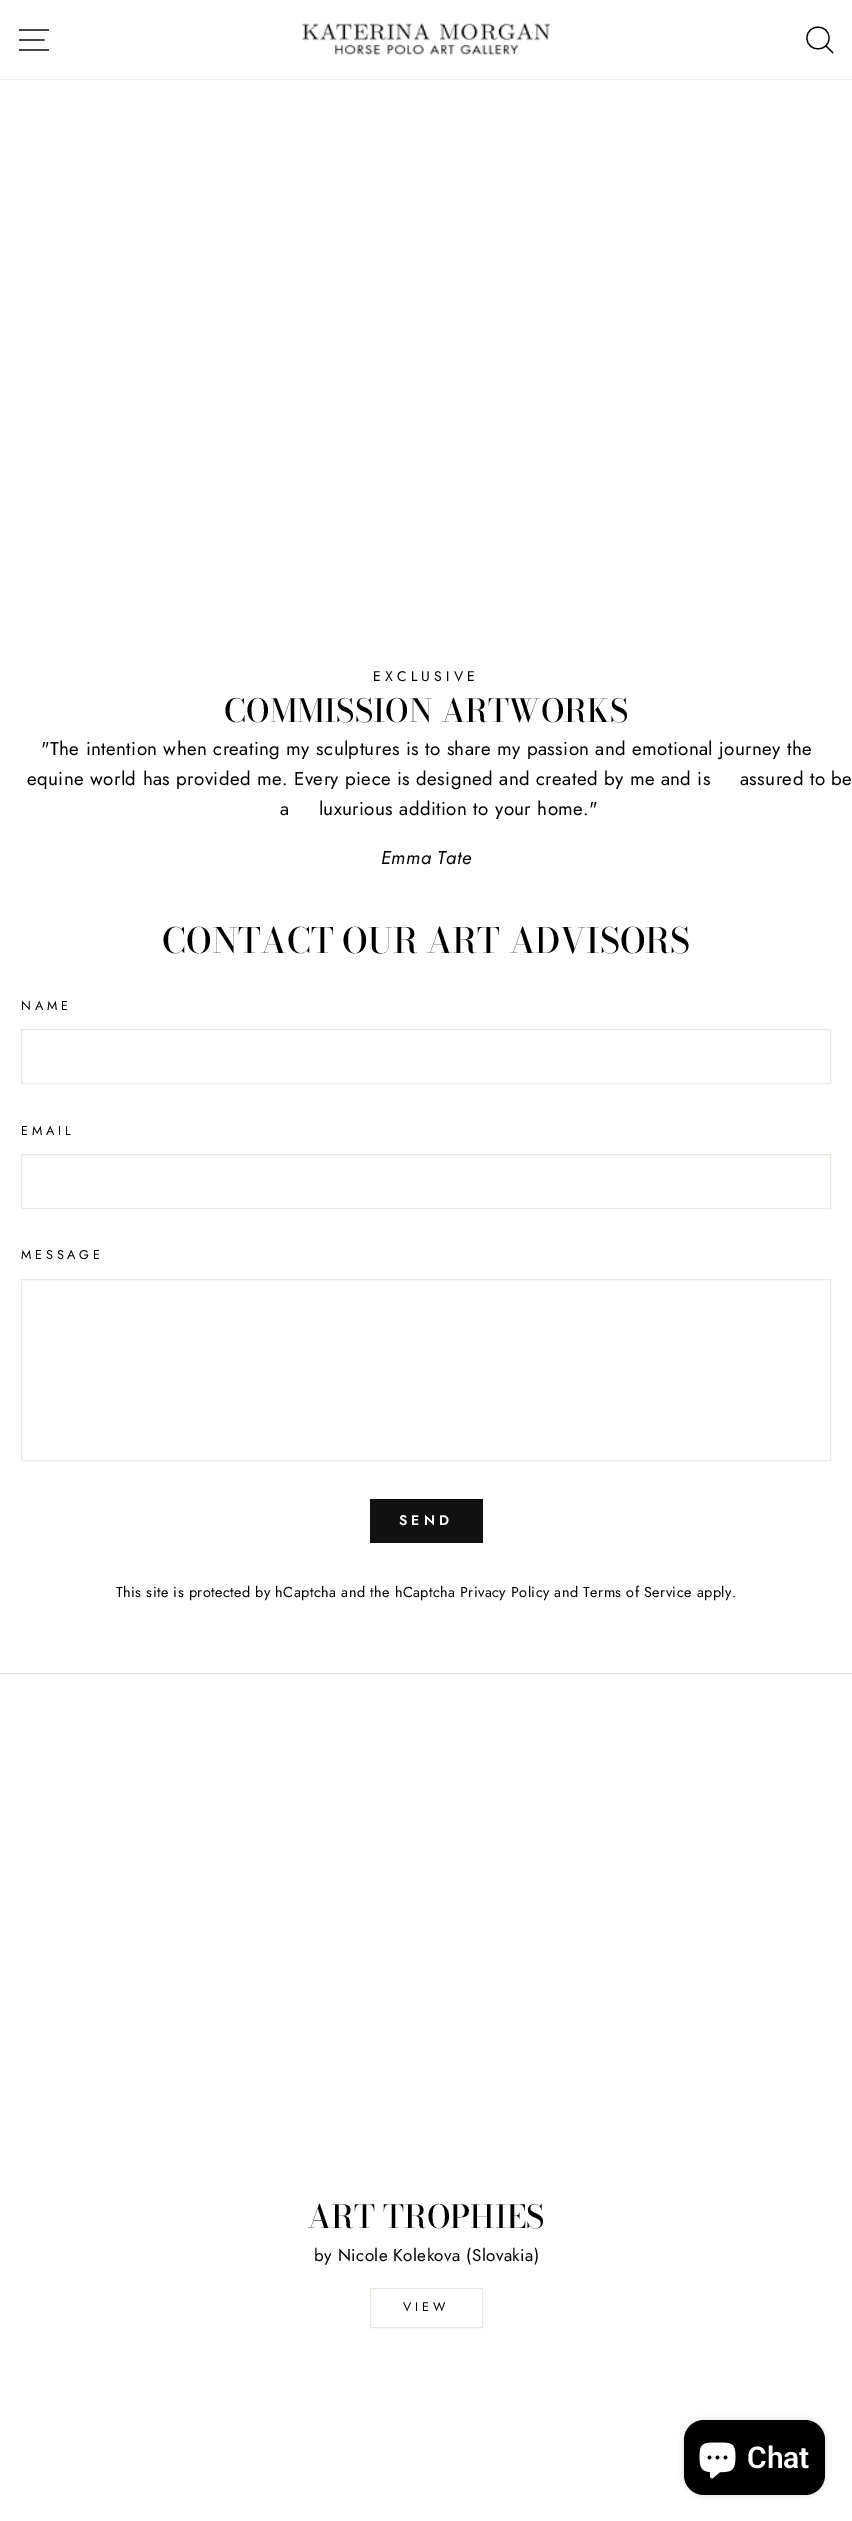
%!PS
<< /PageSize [852 2521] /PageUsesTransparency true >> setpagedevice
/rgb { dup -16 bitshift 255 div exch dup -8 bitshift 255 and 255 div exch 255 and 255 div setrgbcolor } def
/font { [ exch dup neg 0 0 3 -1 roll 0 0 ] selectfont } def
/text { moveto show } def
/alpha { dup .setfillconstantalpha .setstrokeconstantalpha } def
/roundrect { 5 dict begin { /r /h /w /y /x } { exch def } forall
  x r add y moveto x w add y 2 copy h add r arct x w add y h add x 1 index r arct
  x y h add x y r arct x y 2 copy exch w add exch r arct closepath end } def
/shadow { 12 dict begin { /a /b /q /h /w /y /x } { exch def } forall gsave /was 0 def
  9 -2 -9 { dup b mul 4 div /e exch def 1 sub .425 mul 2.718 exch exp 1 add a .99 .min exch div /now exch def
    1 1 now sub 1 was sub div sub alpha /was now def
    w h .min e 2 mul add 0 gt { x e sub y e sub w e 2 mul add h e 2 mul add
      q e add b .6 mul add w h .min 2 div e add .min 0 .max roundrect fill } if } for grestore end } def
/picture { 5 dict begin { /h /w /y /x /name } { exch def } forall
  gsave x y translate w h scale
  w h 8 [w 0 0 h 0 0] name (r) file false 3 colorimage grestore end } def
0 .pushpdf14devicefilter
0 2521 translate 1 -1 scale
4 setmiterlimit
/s1 { /BodoniModa-Medium 31.8 font 16#000000 rgb } def
/s2 { /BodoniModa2-Medium 34.7 font 16#000000 rgb } def
/s3 { /Roboto-SemiBold 30 font 16#FFFFFF rgb } def
16#FFFFFF rgb
0 0 852 2521 rectfill
16#000000 rgb
0 0 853 79 0 0.5 0.2 shadow
16#FFFFFF rgb
0 0 852 79 rectfill
16#000000 rgb
1.2 setlinewidth
19 30 moveto 49 30 lineto 19 40 moveto 44.5 40 lineto 19 50 moveto 49 50 lineto stroke
(pic1.raw) 302 23 249 33 picture
829 38 moveto 829 52.5 807 52.5 807 38 curveto 807 23.5 829 23.5 829 38 curveto closepath 833 53 moveto 826 46 lineto stroke
/Jost-Regular 14 font
373 681 moveto 4.25 0 (EXCLUSIVE) ashow
s1
(COMMISSION ARTWORKS) 224 722 text
/Jost-Regular 18.7 font
41 755 moveto 0.43 0 ("The intention when creating my sculptures is to share my passion and emotional journey the) ashow
27 785 moveto 0.43 0 (equine world has provided me. Every piece is designed and created by me and is assured to be) ashow
280 815 moveto 0.43 0 (a luxurious addition to your home.") ashow
/Jost-Italic 18.7 font
381 864 moveto 0.43 0 (Emma Tate) ashow
s2
(CONTACT OUR ART ADVISORS) 162 953 text
/Jost-Regular 12.75 font
21 1010 moveto 3.75 0 (NAME) ashow
16#E8E8E1 rgb
1 setlinewidth
21.5 1029.5 809 54 rectstroke
16#000000 rgb
21 1135 moveto 3.75 0 (EMAIL) ashow
16#E8E8E1 rgb
21.5 1154.5 809 54 rectstroke
16#000000 rgb
21 1259 moveto 3.75 0 (MESSAGE) ashow
16#E8E8E1 rgb
21.5 1279.5 809 181 rectstroke
16#111111 rgb
370 1499 113 44 rectfill
/Jost-SemiBold 14 font
16#FFFFFF rgb
399 1525 moveto 4 0 (SEND) ashow
/Jost-Regular 14.45 font
16#000000 rgb
116 1597 moveto 0.43 0 (This site is protected by hCaptcha and the hCaptcha) ashow
460 1597 moveto 0.43 0 (Privacy Policy and Terms of Service apply.) ashow
16#E8E8E1 rgb
0 1673 852 1 rectfill
s1
(ART TROPHIES) 307 2228 text
/Jost-Regular 17 font
314 2261 moveto 0.43 0 (by Nicole Kolekova \(Slovakia\)) ashow
16#E8E8E1 rgb
370.5 2288.5 112 39 rectstroke
/Jost-Regular 12.5 font
16#000000 rgb
403 2311 moveto 4 0 (VIEW) ashow
684 2420 141 75 20 3 0.15 shadow
684 2420 141 75 20 roundrect fill
(pic2.raw) 699 2442 37 37 picture
s3
(Chat) 747 2468 text
.poppdf14devicefilter showpage
